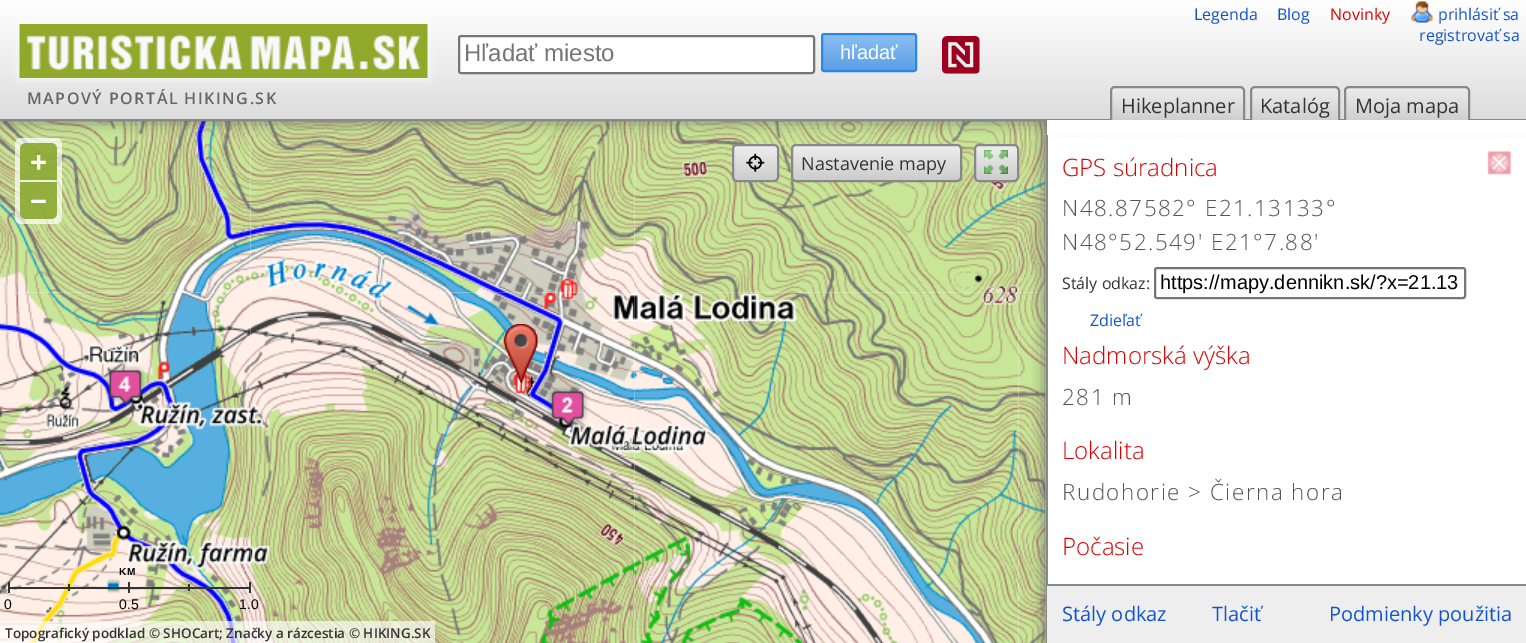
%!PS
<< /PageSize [1526 643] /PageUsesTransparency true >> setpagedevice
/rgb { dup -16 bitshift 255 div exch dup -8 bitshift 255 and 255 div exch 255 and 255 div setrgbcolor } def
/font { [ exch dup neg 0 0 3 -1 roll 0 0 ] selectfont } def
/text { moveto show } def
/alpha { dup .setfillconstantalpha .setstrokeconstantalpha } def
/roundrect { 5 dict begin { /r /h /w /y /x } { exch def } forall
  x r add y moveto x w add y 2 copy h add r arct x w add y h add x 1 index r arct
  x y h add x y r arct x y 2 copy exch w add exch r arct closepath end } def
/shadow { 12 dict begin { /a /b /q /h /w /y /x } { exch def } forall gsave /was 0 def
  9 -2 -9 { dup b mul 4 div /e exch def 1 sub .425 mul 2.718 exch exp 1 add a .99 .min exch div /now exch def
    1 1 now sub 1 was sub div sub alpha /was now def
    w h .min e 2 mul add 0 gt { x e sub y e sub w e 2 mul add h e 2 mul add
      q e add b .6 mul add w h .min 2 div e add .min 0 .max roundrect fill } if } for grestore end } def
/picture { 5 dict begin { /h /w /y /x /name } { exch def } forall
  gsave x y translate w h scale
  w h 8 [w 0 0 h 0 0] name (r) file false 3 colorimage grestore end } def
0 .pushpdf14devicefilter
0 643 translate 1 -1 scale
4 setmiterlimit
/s1 { /OpenSans-Regular 16 font 16#1155CC rgb } def
/s2 { /OpenSans-Regular 16 font 16#DD0000 rgb } def
/s3 { /LiberationSans-Regular 24 font 16#757575 rgb } def
/s4 { /LiberationSans-Regular 20 font 16#FFFFFF rgb } def
/s5 { /OpenSans-Regular 20 font 16#333333 rgb } def
/s6 { /OpenSans-Bold 30 font 16#FFFFFF rgb } def
/s7 { /LiberationSans-Regular 14 font 16#000000 rgb } def
/s8 { /OpenSans-SemiBold 13.5 font 16#333333 rgb } def
/s9 { /OpenSans-Regular 18 font 16#333333 rgb } def
/s10 { /OpenSans-Light 24 font 16#DD0000 rgb } def
/s11 { /OpenSans-Regular 16 font 16#333333 rgb } def
/s12 { /LiberationSans-Regular 20 font 16#000000 rgb } def
/s13 { /OpenSans-Regular 20 font 16#1155CC rgb } def
16#FFFFFF rgb
0 0 1526 643 rectfill
(pic9.raw) 250 292 385 351 picture
(pic5.raw) 250 121 385 172 picture
(pic8.raw) 0 292 251 351 picture
(pic4.raw) 0 121 251 172 picture
(pic10.raw) 634 292 385 351 picture
(pic6.raw) 634 121 385 172 picture
(pic11.raw) 1018 292 28 351 picture
(pic7.raw) 1018 121 28 172 picture
(pic15.raw) 250 292 385 273 picture
(pic13.raw) 250 220 260 73 picture
(pic12.raw) 194 121 57 120 picture
0.7 alpha
15 138 47 86 6 roundrect fill
0.8 alpha
16#7C9E15 rgb
26 143 moveto 51 143 lineto 54.5 143 57 145.5 57 149 curveto 57 180 lineto 20 180 lineto 20 149 lineto 20 145.5 22.5 143 26 143 curveto closepath fill
gsave
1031 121 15 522 rectclip
1 alpha
16#666666 rgb
1046 120 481 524 0 7.5 1 shadow
grestore
1 alpha
16#888888 rgb
1046 120 2 523 rectfill
16#666666 rgb
0 0 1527 120 0 7.5 1 shadow
gsave 0 0 moveto 1526 0 lineto 1526 119 lineto 0 119 lineto closepath clip newpath
<< /ShadingType 2 /ColorSpace /DeviceRGB /Coords [0 0 0 119] /Extend [true true] /Function << /FunctionType 2 /Domain [0 1] /C0 [1 1 1] /C1 [0.867 0.867 0.867] /N 1 >> >> shfill grestore
16#888888 rgb
0 119 1526 2 rectfill
s1
(Legenda) 1194 20 text
(Blog) 1277 20 text
s2
(Novinky) 1330 20 text
(pic1.raw) 1411 1 22 22 picture
s1
(prihlásiť sa) 1438 20 text
(registrovať sa) 1419 41 text
16#FFFFFF rgb
459 36 355 37 2 roundrect gsave fill grestore
16#767676 rgb
2 setlinewidth
stroke
s3
(Hľadať miesto) 464 61 text
gsave
821 33 96 39 3 roundrect clip newpath
gsave 821 35 moveto 917 35 lineto 917 71 lineto 821 71 lineto closepath clip newpath
<< /ShadingType 2 /ColorSpace /DeviceRGB /Coords [822 35 822 71] /Extend [true true] /Function << /FunctionType 2 /Domain [0 1] /C0 [0.541 0.745 0.957] /C1 [0.357 0.62 0.89] /N 1 >> >> shfill grestore
grestore
16#2A89E8 rgb
822 34 94 37 2 roundrect stroke
s4
(hľadať) 840 59 text
(pic2.raw) 942 36 38 38 picture
20 24 408 54 0 4 1 shadow
(pic3.raw) 19 24 409 54 picture
/OpenSans-SemiBold 16 font
16#666666 rgb
27 104 moveto 1.5 0 (MAPOVÝ PORTÁL HIKING.SK) ashow
gsave 1112 87 132 36 3 roundrect clip newpath
<< /ShadingType 2 /ColorSpace /DeviceRGB /Coords [1112 87 1112 123] /Extend [true true] /Function << /FunctionType 2 /Domain [0 1] /C0 [0.933 0.933 0.933] /C1 [0.8 0.8 0.8] /N 1 >> >> shfill grestore
16#888888 rgb
1111 87 133 37 4 roundrect stroke
s5
(Hikeplanner) 1121 113 text
gsave 1251 87 87 36 3 roundrect clip newpath
<< /ShadingType 2 /ColorSpace /DeviceRGB /Coords [1251 87 1251 123] /Extend [true true] /Function << /FunctionType 2 /Domain [0 1] /C0 [0.933 0.933 0.933] /C1 [0.8 0.8 0.8] /N 1 >> >> shfill grestore
16#888888 rgb
1251 87 88 37 4 roundrect stroke
s5
(Katalóg) 1260 113 text
gsave 1346 87 123 36 3 roundrect clip newpath
<< /ShadingType 2 /ColorSpace /DeviceRGB /Coords [1346 87 1346 123] /Extend [true true] /Function << /FunctionType 2 /Domain [0 1] /C0 [0.933 0.933 0.933] /C1 [0.8 0.8 0.8] /N 1 >> >> shfill grestore
16#888888 rgb
1345 87 124 37 4 roundrect stroke
s5
(Moja mapa) 1355 113 text
16#FFFFFF rgb
1047 120 479 15 rectfill
(pic14.raw) 0 322 251 321 picture
(pic16.raw) 634 422 75 26 picture
(pic18.raw) 503 324 35 59 picture
(pic17.raw) 105 324 483 104 picture
s6
(+) 30 173 text
0.8 alpha
16#7C9E15 rgb
20 182 moveto 57 182 lineto 57 213 lineto 57 216.5 54.5 219 51 219 curveto 26 219 lineto 22.5 219 20 216.5 20 213 curveto closepath fill
1 alpha
s6
(−) 30 212 text
/LiberationSans-Bold 10 font
16#000000 rgb
119 575 moveto 1 0 (KM) ashow
16#333333 rgb
8 582 2 11 rectfill
68 584 2 7 rectfill
128 582 2 11 rectfill
129 587 60 2 rectfill
188 584 2 7 rectfill
249 582 2 11 rectfill
8 587 60 2 rectfill
68 587 60 2 rectfill
189 587 60 2 rectfill
s7
(0) 4 609 text
(0.5) 119 609 text
(1.0) 239 609 text
0.65 alpha
16#FFFFFF rgb
0 621 435 22 rectfill
1 alpha
s8
(Topografický podklad © SHOCart; Značky a rázcestia © HIKING.SK) 5 638 text
gsave 734 146 43 34 3 roundrect clip newpath
<< /ShadingType 2 /ColorSpace /DeviceRGB /Coords [734 146 734 180] /Extend [true true] /Function << /FunctionType 2 /Domain [0 1] /C0 [0.933 0.933 0.933] /C1 [0.8 0.8 0.8] /N 1 >> >> shfill grestore
(pic19.raw) 746 153 19 19 picture
16#888888 rgb
733 145 45 36 4 roundrect stroke
gsave 792 146 168 34 3 roundrect clip newpath
<< /ShadingType 2 /ColorSpace /DeviceRGB /Coords [792 146 792 180] /Extend [true true] /Function << /FunctionType 2 /Domain [0 1] /C0 [0.933 0.933 0.933] /C1 [0.8 0.8 0.8] /N 1 >> >> shfill grestore
792 145 169 36 4 roundrect stroke
s9
(Nastavenie mapy) 801 170 text
gsave 975 146 42 34 3 roundrect clip newpath
<< /ShadingType 2 /ColorSpace /DeviceRGB /Coords [975 146 975 180] /Extend [true true] /Function << /FunctionType 2 /Domain [0 1] /C0 [0.933 0.933 0.933] /C1 [0.8 0.8 0.8] /N 1 >> >> shfill grestore
(pic20.raw) 984 150 24 24 picture
16#888888 rgb
975 145 43 36 4 roundrect stroke
s10
(GPS súradnica) 1062 176 text
/OpenSans-Light 22.4 font
16#555555 rgb
1062 216 moveto 1.5 0 (N48.87582° E21.13133°) ashow
1062 250 moveto 1.5 0 (N48°52.549' E21°7.88') ashow
s11
(Stály odkaz:) 1062 289 text
16#767676 rgb
1155 268 310 30 2 roundrect stroke
s12
(https://mapy.dennikn.sk/?x=21.13) 1160 289 text
s1
(Zdieľať) 1090 326 text
s10
(Nadmorská výška) 1062 364 text
/OpenSans-Light 22.4 font
16#555555 rgb
1062 405 moveto 1.5 0 (281 m) ashow
s10
(Lokalita) 1062 459 text
/OpenSans-Light 22.4 font
16#555555 rgb
1062 500 moveto 1.5 0 (Rudohorie > Čierna hora) ashow
s10
(Počasie) 1062 555 text
(pic21.raw) 1486 150 26 26 picture
16#EEEEEE rgb
1047 586 479 57 rectfill
16#888888 rgb
1047 584 479 2 rectfill
s13
(Stály odkaz) 1062 621 text
(Tlačiť) 1212 621 text
(Podmienky použitia) 1329 621 text
.poppdf14devicefilter showpage
